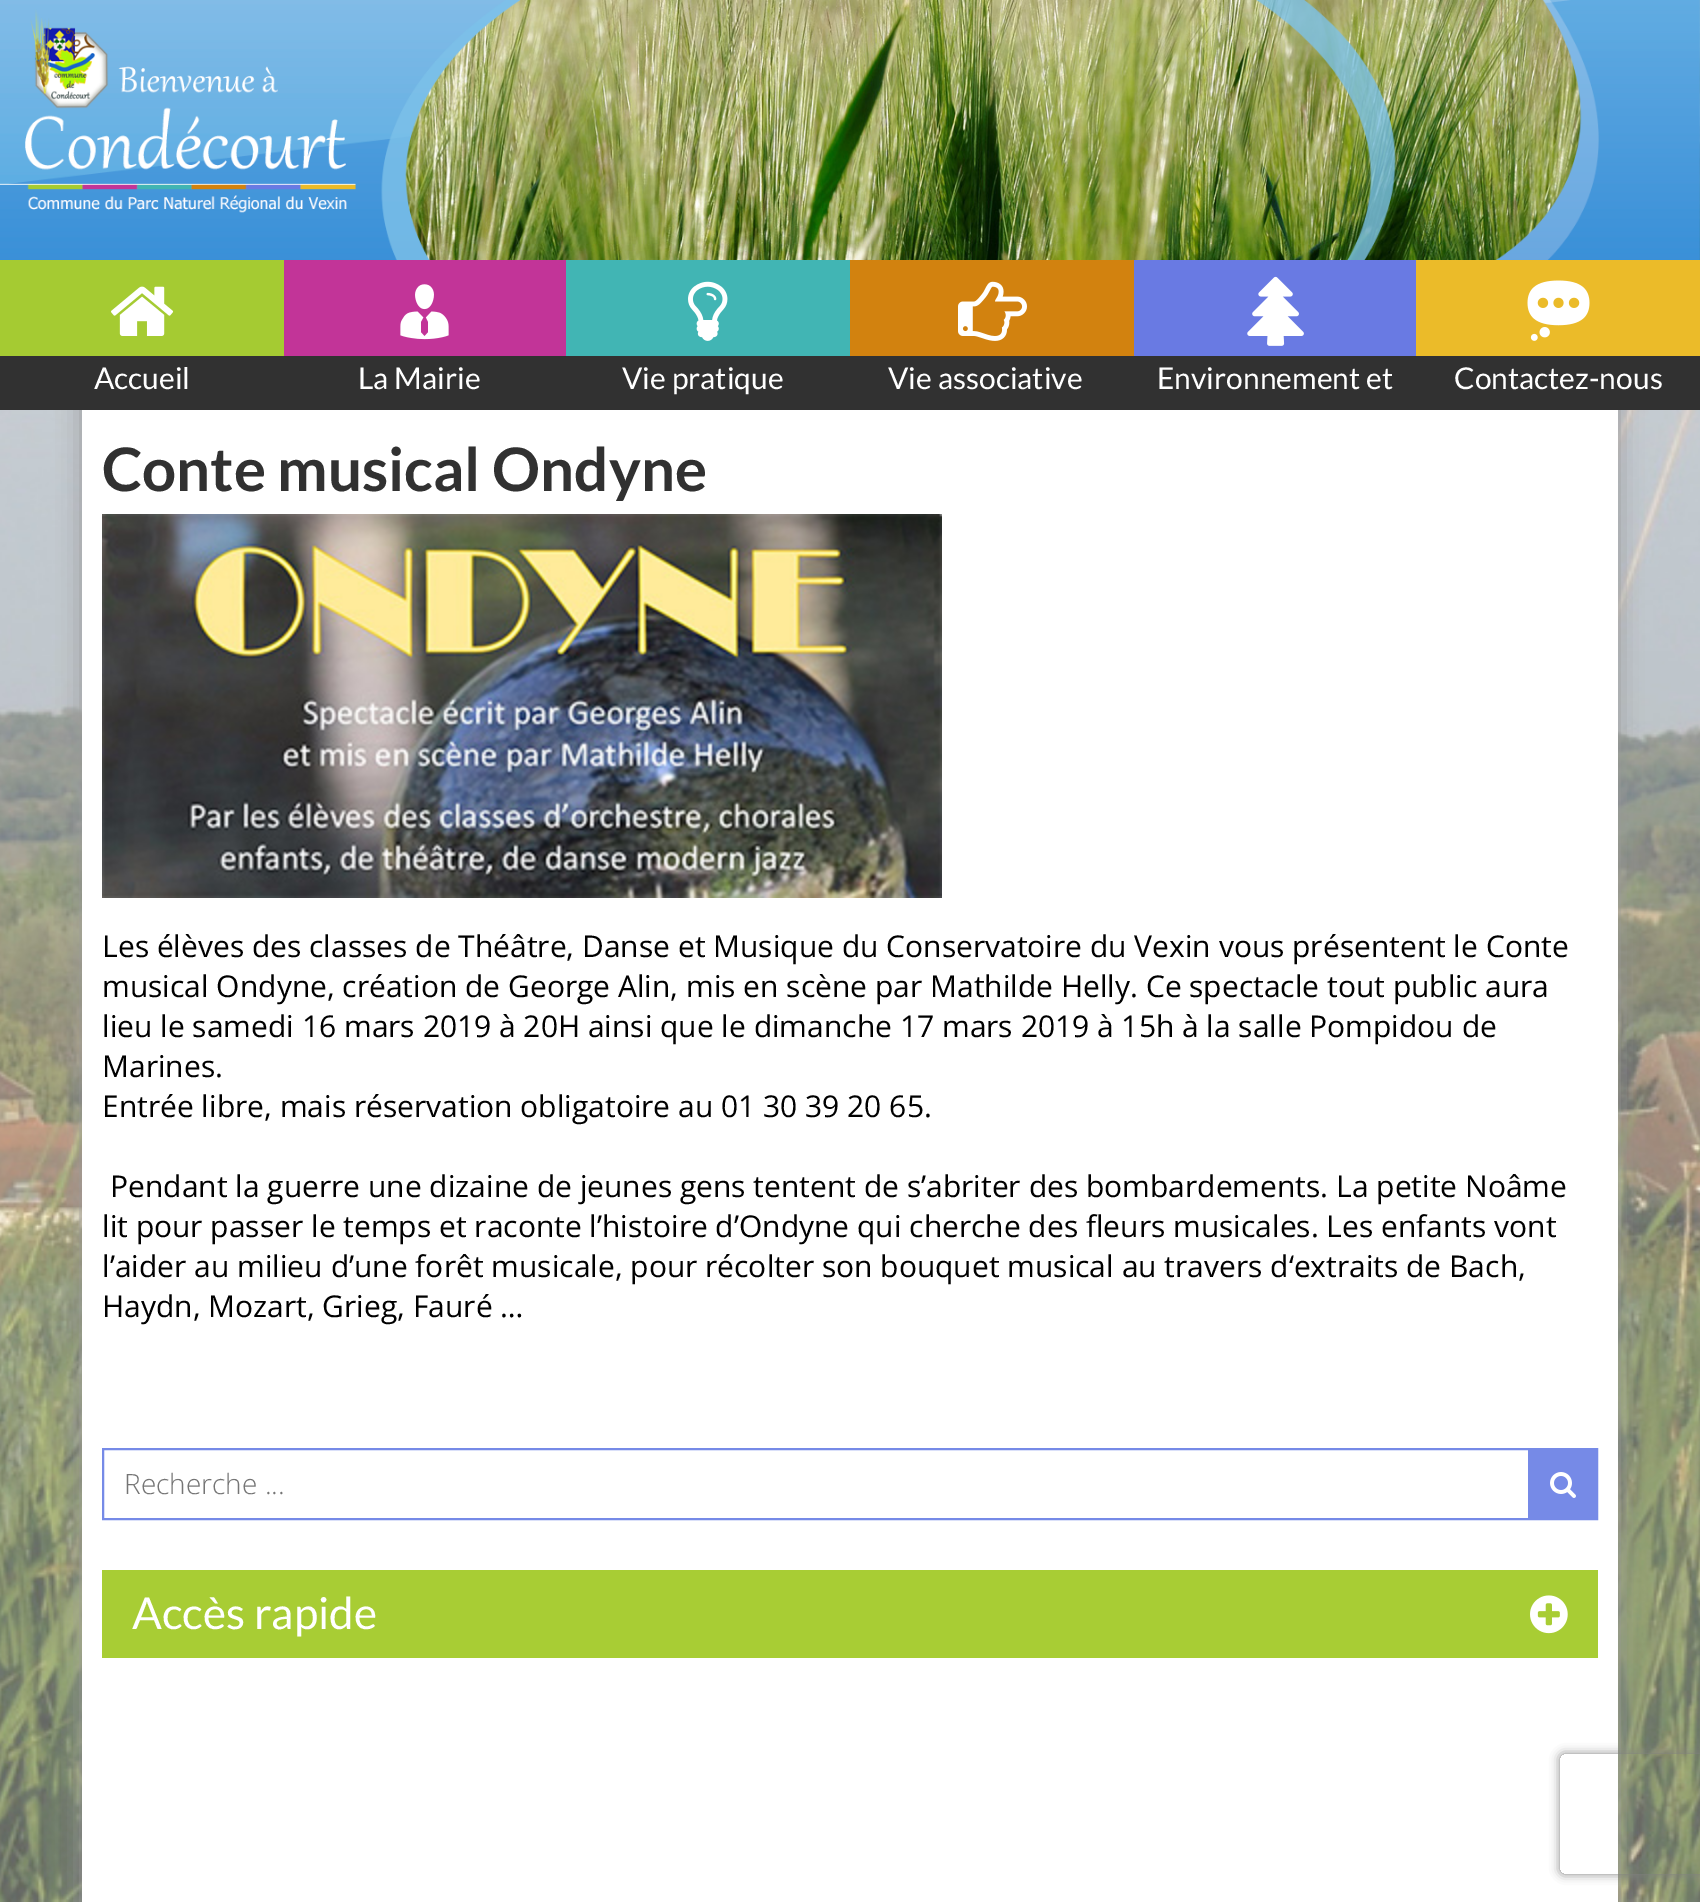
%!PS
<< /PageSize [1700 1902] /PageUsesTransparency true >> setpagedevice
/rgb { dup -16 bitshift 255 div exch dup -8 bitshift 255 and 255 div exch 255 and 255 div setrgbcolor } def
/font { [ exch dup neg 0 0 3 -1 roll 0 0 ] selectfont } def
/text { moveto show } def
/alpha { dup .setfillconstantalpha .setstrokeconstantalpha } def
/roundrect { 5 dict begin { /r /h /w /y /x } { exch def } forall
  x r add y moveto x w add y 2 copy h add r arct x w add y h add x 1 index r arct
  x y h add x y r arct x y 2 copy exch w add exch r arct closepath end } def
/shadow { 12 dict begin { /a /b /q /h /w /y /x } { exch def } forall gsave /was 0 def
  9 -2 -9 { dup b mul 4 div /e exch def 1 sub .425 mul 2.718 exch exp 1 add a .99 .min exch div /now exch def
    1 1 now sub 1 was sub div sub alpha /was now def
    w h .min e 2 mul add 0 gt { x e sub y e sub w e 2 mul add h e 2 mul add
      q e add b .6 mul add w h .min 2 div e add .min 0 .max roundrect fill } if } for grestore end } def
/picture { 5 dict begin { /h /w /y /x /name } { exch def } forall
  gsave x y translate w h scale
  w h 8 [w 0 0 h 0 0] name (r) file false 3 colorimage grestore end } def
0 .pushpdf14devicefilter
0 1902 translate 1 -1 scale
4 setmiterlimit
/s1 { /Lato-Regular 30 font 16#FFFFFF rgb } def
/s2 { /Lato-Bold 60 font 16#313131 rgb } def
/s3 { /OpenSans-Regular 30 font 16#000000 rgb } def
/s4 { /OpenSans-Light 28 font 16#757575 rgb } def
/s5 { /Lato-Regular 44 font 16#FFFFFF rgb } def
16#FFFFFF rgb
0 0 1700 1902 rectfill
(pic1.raw) 0 410 1700 1492 picture
(pic2.raw) 405 0 1295 260 picture
16#A5CB32 rgb
0 260 284 96 rectfill
16#C23498 rgb
284 260 282 96 rectfill
16#41B5B4 rgb
566 260 284 96 rectfill
16#D2820F rgb
850 260 284 96 rectfill
16#697AE3 rgb
1134 260 282 96 rectfill
16#EBBB29 rgb
1416 260 284 96 rectfill
(pic3.raw) 0 0 1700 260 picture
16#999999 rgb
82 402 1536 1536 0 12 1 shadow
16#313131 rgb
0 356 1700 54 rectfill
(pic4.raw) 111 286 63 50 picture
s1
(Accueil) 94 389 text
(pic5.raw) 400 284 49 56 picture
(La Mairie) 358 389 text
(pic6.raw) 688 281 40 60 picture
(Vie pratique) 622 389 text
(pic7.raw) 958 281 69 60 picture
(Vie associative) 888 389 text
(pic8.raw) 1247 276 57 70 picture
(Environnement et) 1157 389 text
(pic9.raw) 1527 280 63 61 picture
(Contactez-nous) 1454 389 text
82 410 1536 1492 rectfill
s2
(Conte musical Ondyne) 102 491 text
(pic10.raw) 102 514 840 384 picture
s3
(Les élèves des classes de Théâtre, Danse et Musique du Conservatoire du Vexin vous présentent le Conte) 102 957 text
(musical Ondyne, création de George Alin, mis en scène par Mathilde Helly. Ce spectacle tout public aura) 102 997 text
(lieu le samedi 16 mars 2019 à 20H ainsi que le dimanche 17 mars 2019 à 15h à la salle Pompidou de) 102 1037 text
(Marines.) 102 1077 text
(Entrée libre, mais réservation obligatoire au 01 30 39 20 65.) 102 1117 text
(Pendant la guerre une dizaine de jeunes gens tentent de s’abriter des bombardements. La petite Noâme) 110 1197 text
(lit pour passer le temps et raconte l’histoire d’Ondyne qui cherche des fleurs musicales. Les enfants vont) 102 1237 text
(l’aider au milieu d’une forêt musicale, pour récolter son bouquet musical au travers d‘extraits de Bach,) 102 1277 text
(Haydn, Mozart, Grieg, Fauré …) 102 1317 text
16#768AE7 rgb
2 setlinewidth
103 1449 1494 70 rectstroke
s4
(Recherche ...) 124 1494 text
16#768AE7 rgb
1528 1450 68 68 rectfill
(pic11.raw) 1550 1472 26 26 picture
16#A8CD34 rgb
102 1570 1496 88 rectfill
s5
(Accès rapide) 132 1629 text
(pic12.raw) 1530 1595 38 39 picture
gsave
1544 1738 moveto 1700 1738 lineto 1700 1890 lineto 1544 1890 lineto closepath 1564 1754 moveto 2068 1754 lineto 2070 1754 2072 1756 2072 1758 curveto 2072 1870 lineto 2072 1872 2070 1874 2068 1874 curveto 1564 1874 lineto 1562 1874 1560 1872 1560 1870 curveto 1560 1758 lineto 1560 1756 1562 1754 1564 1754 curveto closepath eoclip newpath
16#808080 rgb
1560 1754 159 120 4 5 1 shadow
grestore
.poppdf14devicefilter showpage
